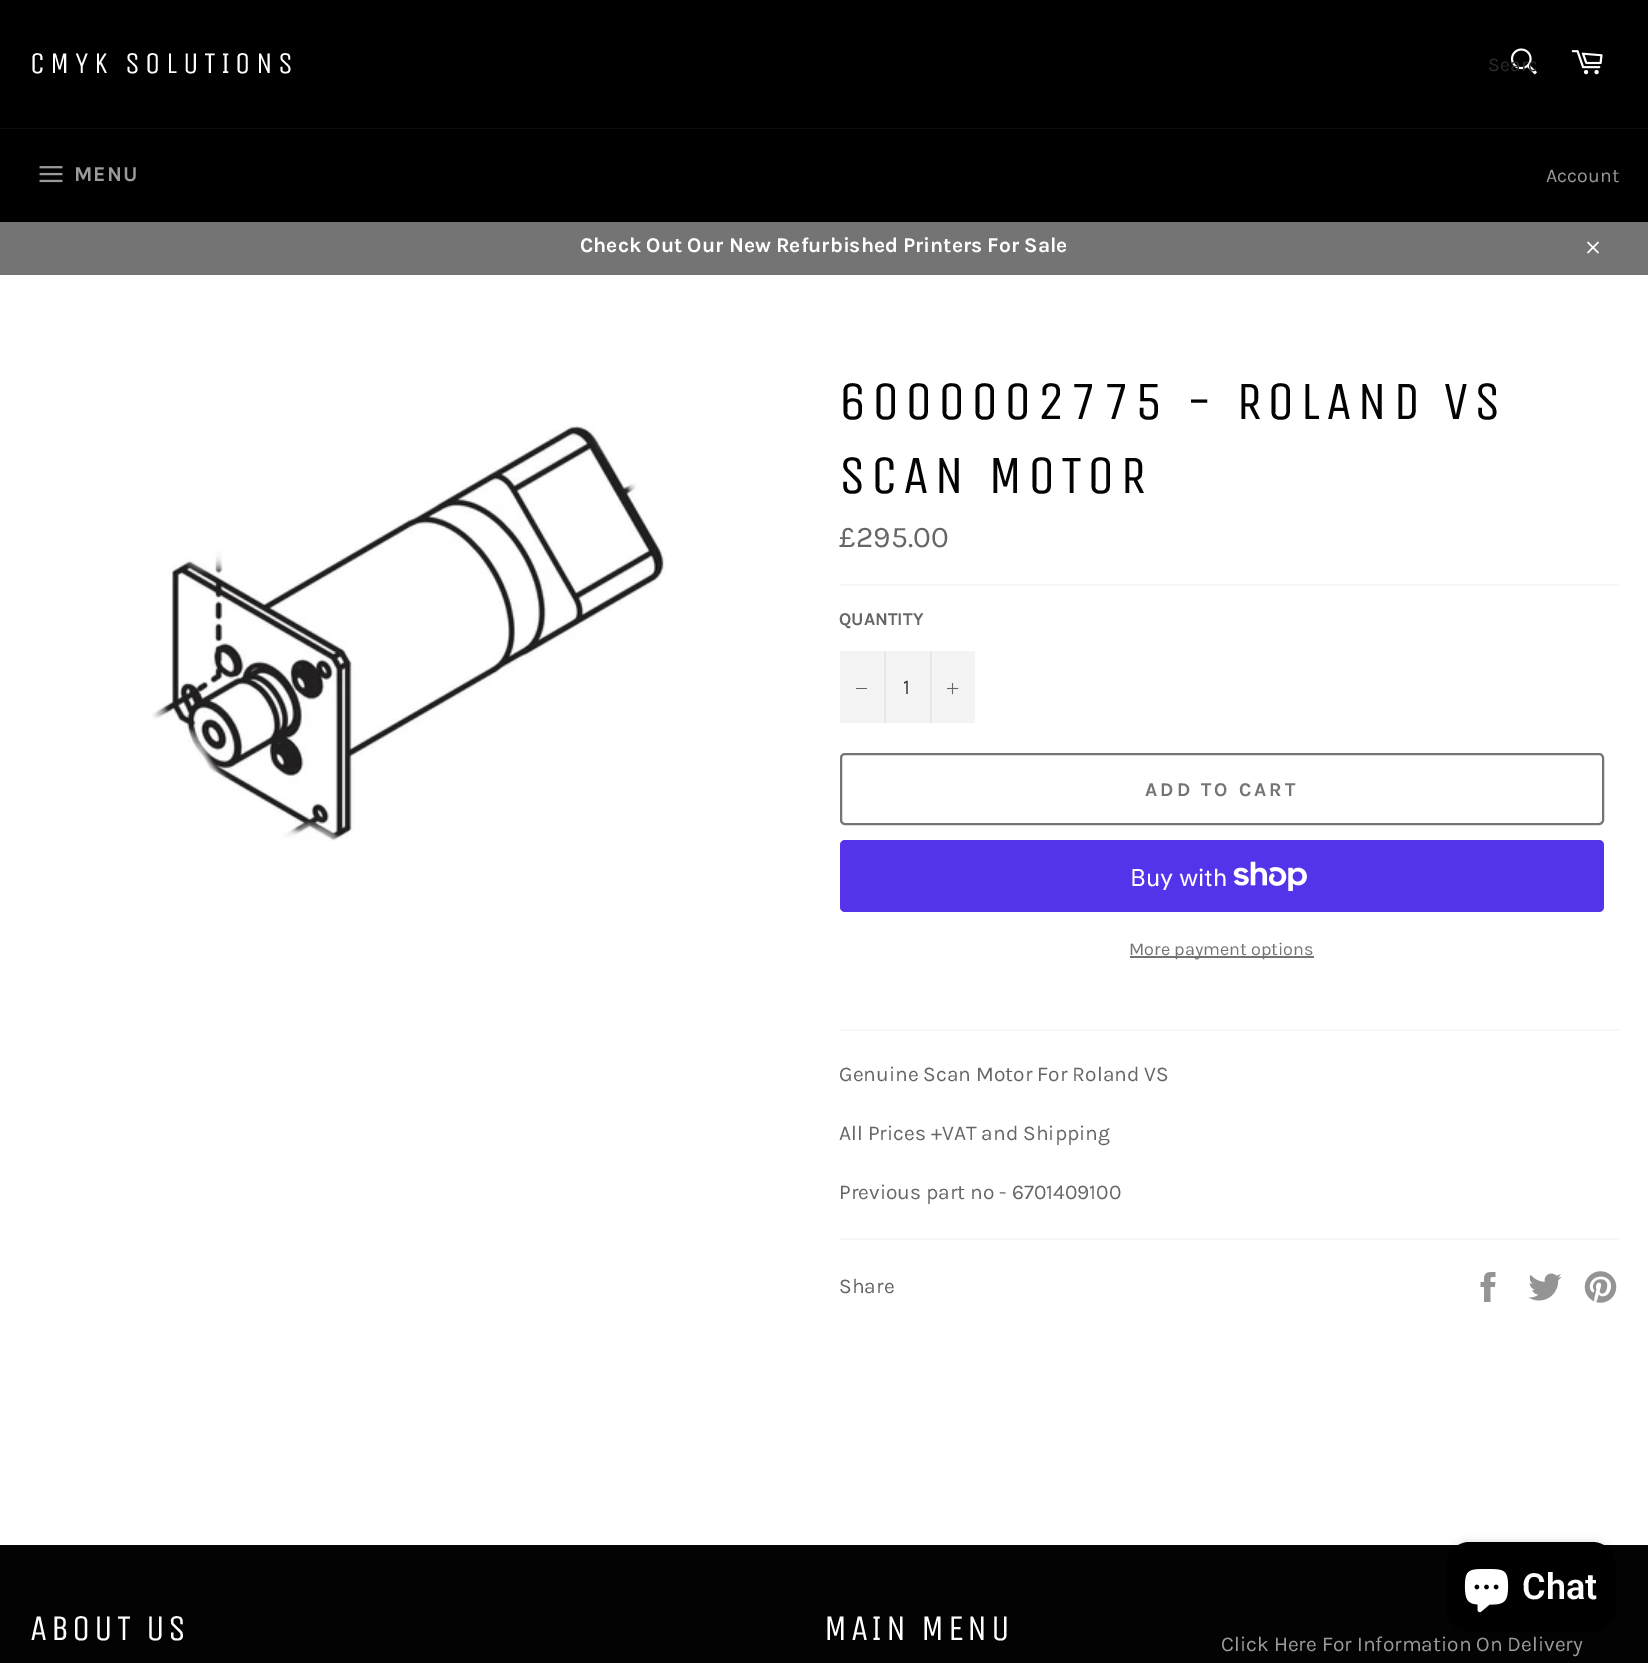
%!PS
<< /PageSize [1648 1663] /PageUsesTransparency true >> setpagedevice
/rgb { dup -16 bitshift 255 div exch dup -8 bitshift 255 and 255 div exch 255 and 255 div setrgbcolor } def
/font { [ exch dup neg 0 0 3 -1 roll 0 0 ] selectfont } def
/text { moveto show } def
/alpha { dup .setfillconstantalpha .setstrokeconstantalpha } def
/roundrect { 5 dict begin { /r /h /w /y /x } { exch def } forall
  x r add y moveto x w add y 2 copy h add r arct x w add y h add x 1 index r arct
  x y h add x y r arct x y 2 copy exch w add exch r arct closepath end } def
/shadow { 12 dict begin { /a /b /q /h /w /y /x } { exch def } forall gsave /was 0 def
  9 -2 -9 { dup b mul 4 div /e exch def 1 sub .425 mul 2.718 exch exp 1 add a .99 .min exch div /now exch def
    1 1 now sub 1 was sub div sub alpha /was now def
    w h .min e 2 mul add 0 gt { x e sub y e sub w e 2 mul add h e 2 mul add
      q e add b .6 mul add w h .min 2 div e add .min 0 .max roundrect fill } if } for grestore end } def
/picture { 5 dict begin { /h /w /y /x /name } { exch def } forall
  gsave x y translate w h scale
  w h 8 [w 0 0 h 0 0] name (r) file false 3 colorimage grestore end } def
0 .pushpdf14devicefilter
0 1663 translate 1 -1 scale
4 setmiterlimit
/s1 { /Karla-Regular 19.5 font 16#2B2B2B rgb } def
/s2 { /Karla-Regular 19.5 font 16#9A9A9A rgb } def
/s3 { /Karla-Bold 21 font 16#FFFFFF rgb } def
/s4 { /Karla-Regular 30 font 16#666666 rgb } def
/s5 { /Karla-Bold 18 font 16#666666 rgb } def
/s6 { /Karla-Regular 21 font 16#333333 rgb } def
/s7 { /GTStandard-Regular 24 font 16#FFFFFF rgb } def
/s8 { /Karla-Regular 18 font 16#747474 rgb } def
/s9 { /Karla-Regular 21 font 16#666666 rgb } def
/s10 { /Karla-Regular 21 font 16#9A9A9A rgb } def
/s11 { /Roboto-SemiBold 36 font 16#FFFFFF rgb } def
16#000000 rgb
0 0 1648 1663 rectfill
/UnicaOne-Regular 30 font
16#FFFFFF rgb
30 73 moveto 5.4 0 (CMYK SOLUTIONS) ashow
(pic1.raw) 1510 48 27 27 picture
gsave
1488 53 48 22 rectclip
s1
(Searc) 1488 71 text
grestore
(pic2.raw) 1571 50 32 25 picture
16#0D0D0D rgb
0 128 1648 1 rectfill
(pic3.raw) 39 166 24 17 picture
/Karla-Bold 21 font
16#9A9A9A rgb
74 181 moveto 1 0 (MENU) ashow
s2
(Account) 1546 182 text
16#747474 rgb
0 222 1648 53 rectfill
s3
(Check Out Our New Refurbished Printers For Sale) 580 252 text
(pic4.raw) 1587 241 12 13 picture
0 275 1648 1270 rectfill
(pic5.raw) 151 425 515 416 picture
/UnicaOne-Regular 54 font
16#030303 rgb
839 419 moveto 5.4 0 (6000002775 - ROLAND VS) ashow
839 493 moveto 5.4 0 (SCAN MOTOR) ashow
s4
(£295.00) 839 547 text
16#F7F7F7 rgb
840 584 779 2 rectfill
s5
(QUANTITY) 839 625 text
16#F4F4F4 rgb
840 651 135 72 rectfill
16#E7E7E7 rgb
884 651 2 72 rectfill
16#666666 rgb
856 688 11 1 rectfill
s6
(1) 903 694 text
16#E7E7E7 rgb
930 651 2 72 rectfill
(pic6.raw) 947 683 12 12 picture
16#747474 rgb
2 setlinewidth
841 754 762 70 4 roundrect stroke
/Karla-Bold 19.5 font
1145 796 moveto 3 0 (ADD TO CART) ashow
16#5433EB rgb
840 840 764 72 5 roundrect fill
s7
(Buy with) 1130 886 text
(pic7.raw) 1233 861 74 30 picture
16#747474 rgb
1130 956 184 2 rectfill
s8
(More payment options) 1129 955 text
16#F7F7F7 rgb
840 1029 779 2 rectfill
s9
(Genuine Scan Motor For Roland VS) 839 1081 text
(All Prices +VAT and Shipping) 839 1140 text
(Previous part no - 6701409100) 839 1199 text
16#F7F7F7 rgb
840 1238 779 2 rectfill
s9
(Share) 839 1293 text
(pic8.raw) 1480 1272 16 30 picture
(pic9.raw) 1528 1273 34 28 picture
(pic10.raw) 1584 1271 33 32 picture
16#030303 rgb
0 1545 1648 118 rectfill
/UnicaOne-Regular 36 font
16#FFFFFF rgb
30 1640 moveto 3.5 0 (ABOUT US) ashow
824 1640 moveto 3.5 0 (MAIN MENU) ashow
s10
(Click Here For Information On Delivery) 1221 1651 text
16#000000 rgb
1446 1542 170 90 24 4 0.15 shadow
1446 1542 170 90 24 roundrect fill
(pic11.raw) 1464 1569 45 44 picture
s11
(Chat) 1522 1599 text
.poppdf14devicefilter showpage
